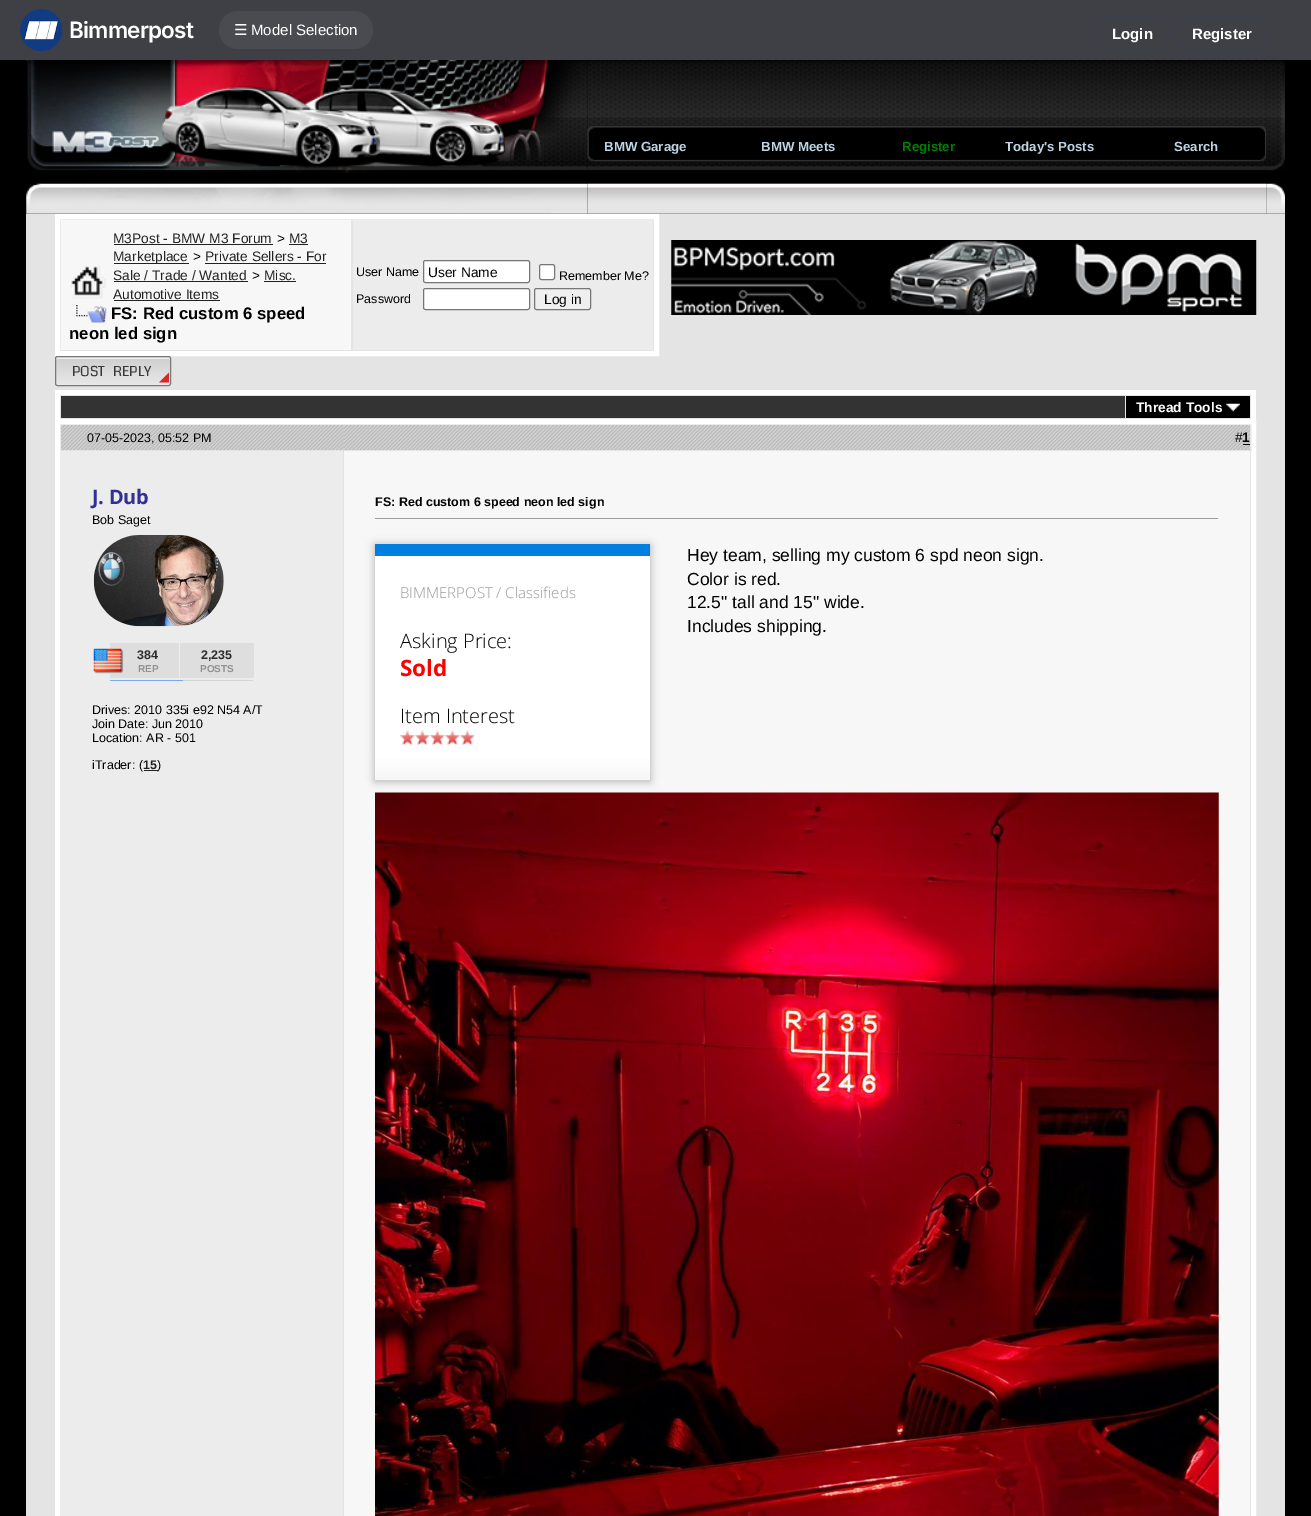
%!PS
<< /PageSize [1311 1516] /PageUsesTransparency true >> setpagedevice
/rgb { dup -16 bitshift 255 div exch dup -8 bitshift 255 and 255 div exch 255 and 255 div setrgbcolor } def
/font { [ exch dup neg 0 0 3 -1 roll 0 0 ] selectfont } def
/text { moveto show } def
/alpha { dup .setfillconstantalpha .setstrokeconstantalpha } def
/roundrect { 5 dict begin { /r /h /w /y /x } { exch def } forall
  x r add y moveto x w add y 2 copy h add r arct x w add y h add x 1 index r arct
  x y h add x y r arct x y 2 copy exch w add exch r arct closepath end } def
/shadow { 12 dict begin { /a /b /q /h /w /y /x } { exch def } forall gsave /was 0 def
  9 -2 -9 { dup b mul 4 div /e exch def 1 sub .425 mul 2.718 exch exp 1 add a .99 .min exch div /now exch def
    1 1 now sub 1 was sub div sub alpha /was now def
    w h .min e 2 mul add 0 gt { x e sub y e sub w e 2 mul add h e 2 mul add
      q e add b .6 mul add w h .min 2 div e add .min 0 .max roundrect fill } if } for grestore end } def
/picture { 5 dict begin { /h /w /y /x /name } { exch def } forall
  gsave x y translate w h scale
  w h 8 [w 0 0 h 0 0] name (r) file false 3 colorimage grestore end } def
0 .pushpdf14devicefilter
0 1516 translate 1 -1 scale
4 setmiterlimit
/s1 { /DejaVuSans-Regular 15 font 16#FFFFFF rgb } def
/s2 { /LiberationSans-Regular 15 font 16#FFFFFF rgb } def
/s3 { /LiberationSans-Bold 15 font 16#FFFFFF rgb } def
/s4 { /LiberationSans-Bold 13.25 font 16#BCD4E4 rgb } def
/s5 { /LiberationSans-Bold 13.25 font 16#008000 rgb } def
/s6 { /LiberationSans-Regular 13.75 font 16#222222 rgb } def
/s7 { /LiberationSans-Regular 13.75 font 16#000000 rgb } def
/s8 { /LiberationSans-Bold 16.75 font 16#000000 rgb } def
/s9 { /LiberationSans-Regular 12.5 font 16#000000 rgb } def
/s10 { /LiberationSans-Bold 13.75 font 16#FFFFFF rgb } def
/s11 { /LiberationSans-Bold 13.75 font 16#000000 rgb } def
/s12 { /LiberationSans-Bold 12.5 font 16#2C2C2C rgb } def
/s13 { /LiberationSans-Bold 10 font 16#909090 rgb } def
/s14 { /LiberationSans-Bold 12.5 font 16#222222 rgb } def
/s15 { /LiberationSans-Bold 12.5 font 16#000000 rgb } def
/s16 { /OpenSans-Light 15 font 16#999999 rgb } def
/s17 { /OpenSans-Light 20 font 16#000000 rgb } def
/s18 { /OpenSans-Bold 22.5 font 16#FF0000 rgb } def
/s19 { /LiberationSans-Regular 17.5 font 16#000000 rgb } def
16#000000 rgb
0 0 1311 1516 rectfill
16#3E4046 rgb
0 0 1311 60 rectfill
(pic1.raw) 20 9 43 42 picture
/Inter-SemiBold 22.5 font
16#FFFFFF rgb
69 38 moveto -0.75 0 (Bimmerpost) ashow
16#494B51 rgb
219 11 154 38 19 roundrect fill
s1
(☰) 234 35 text
s2
(Model Selection) 251 35 text
16#3C414F rgb
1095.5 16.5 73 34 17 roundrect stroke
s3
(Login) 1112 39 text
16#3C414F rgb
1176.5 16.5 92 36 17.5 roundrect stroke
s3
(Register) 1192 39 text
(pic3.raw) 587 60 680 154 picture
(pic2.raw) 26 60 562 154 picture
(pic5.raw) 593 126 667 36 picture
(pic4.raw) 587 126 7 36 picture
s4
(BMW Garage) 604 151 text
(BMW Meets) 761 151 text
s5
(Register) 902 151 text
s4
(Today's Posts) 1005 151 text
(Search) 1174 151 text
(pic6.raw) 1260 126 7 36 picture
(pic7.raw) 1266 60 19 154 picture
16#E4E4E4 rgb
26 214 1259 1302 rectfill
16#FFFFFF rgb
5 setlinewidth
57.5 216.5 599 137 rectstroke
16#F7F7F7 rgb
61 220 290 130 rectfill
(pic8.raw) 70 265 36 34 picture
s6
(M3Post - BMW M3 Forum) 113 243 text
114 244 159 1 rectfill
s7
(>) 277 243 text
s6
(M3) 289 243 text
289 244 19 1 rectfill
114 263 75 1 rectfill
(Marketplace) 113 261 text
s7
(>) 193 261 text
s6
(Private Sellers - For) 205 261 text
205 263 121 1 rectfill
(Sale / Trade / Wanted) 113 280 text
114 281 134 1 rectfill
s7
(>) 252 280 text
s6
(Misc.) 264 280 text
264 281 32 1 rectfill
(Automotive Items) 113 299 text
114 300 106 1 rectfill
(pic9.raw) 76 305 31 18 picture
s8
(FS: Red custom 6 speed) 111 319 text
(neon led sign) 69 339 text
16#ECECEC rgb
353 220 300 130 rectfill
s9
(User Name) 356 276 text
16#FFFFFF rgb
423.5 260.5 106 22 2 roundrect gsave fill grestore
16#767676 rgb
1 setlinewidth
stroke
s7
(User Name) 428 277 text
16#FFFFFF rgb
539.5 264.5 15 15 2 roundrect gsave fill grestore
16#767676 rgb
stroke
s9
(Remember Me?) 559 280 text
(Password) 356 303 text
16#FFFFFF rgb
423.5 288.5 106 21 2 roundrect gsave fill grestore
16#767676 rgb
stroke
16#EFEFEF rgb
534.5 288.5 56 21 2 roundrect gsave fill grestore
16#767676 rgb
stroke
s7
(Log in) 544 304 text
(pic10.raw) 671 240 586 75 picture
gsave
55 356 116 30 2.5 roundrect clip newpath
gsave 55 356 moveto 171 356 lineto 171 358 lineto 55 358 lineto closepath clip newpath
<< /ShadingType 2 /ColorSpace /DeviceRGB /Coords [113 330 113 358] /Extend [true true] /Function << /FunctionType 2 /Domain [0 1] /C0 [0.812 0.812 0.812] /C1 [0.91 0.91 0.91] /N 1 >> >> shfill grestore
grestore
gsave 55 358 moveto 171 358 lineto 171 385 lineto 55 385 lineto closepath clip newpath
<< /ShadingType 2 /ColorSpace /DeviceRGB /Coords [113 358 113 385] /Extend [true true] /Function << /FunctionType 2 /Domain [0 1] /C0 [0.812 0.812 0.812] /C1 [0.91 0.91 0.91] /N 1 >> >> shfill grestore
16#EEEEEE rgb
58 359 moveto 169 359 lineto 170 360 lineto 170 359 170 358 169 358 curveto 57 358 lineto 56 358 56 359 56 360 curveto 56 359 57 359 58 359 curveto closepath fill
16#797979 rgb
55.5 356.5 115 29 2 roundrect stroke
/Coda-Regular 13.75 font
16#373737 rgb
72 376 moveto 5 0 32 (POST REPLY) widthshow
16#D92727 rgb
169 382.5 moveto 159 382.5 lineto 169 372.5 lineto closepath fill
16#FFFFFF rgb
55 390 1201 5 rectfill
1251 390 5 29 rectfill
55 390 5 29 rectfill
16#333333 rgb
61 396 1064 22 rectfill
16#000000 rgb
1126 396 124 22 rectfill
s10
(Thread Tools) 1136 412 text
(pic11.raw) 1226 403 14 9 picture
5 setlinewidth
57.5 421.5 1196 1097 rectstroke
(pic12.raw) 61 425 283 25 picture
s9
(07-05-2023, 05:52 PM) 87 442 text
(pic13.raw) 343 425 909 27 picture
16#E4E4E4 rgb
1250 424 1 28 rectfill
344 450 907 1 rectfill
s7
(#) 1235 442 text
s11
(1) 1242 442 text
1243 444 7 1 rectfill
16#ECECEC rgb
61 451 282 1065 rectfill
/OpenSans-Bold 20 font
16#303096 rgb
92 504 moveto -0.25 0 (J. Dub) ashow
s9
(Bob Saget) 92 524 text
(pic14.raw) 93 535 131 92 picture
16#DEDEDE rgb
110 643 69 35 rectfill
(pic15.raw) 93 648 31 26 picture
s12
(384) 137 659 text
s13
(REP) 138 672 text
16#DEDEDE rgb
180 643 74 35 rectfill
s12
(2,235) 201 659 text
s13
(POSTS) 200 672 text
16#D4D4D4 rgb
183 680 70 1 rectfill
16#77ACEA rgb
110 680 73 1 rectfill
s9
(Drives: 2010 335i e92 N54 A/T) 92 714 text
(Join Date: Jun 2010) 92 728 text
(Location: AR - 501) 92 742 text
(iTrader: \() 92 769 text
s14
(15) 143 769 text
144 770 14 1 rectfill
s9
(\)) 157 769 text
16#F7F7F7 rgb
344 451 906 1065 rectfill
s15
(FS: Red custom 6 speed neon led sign) 375 506 text
16#9F9F9F rgb
375 518 844 1 rectfill
16#EEEEEE rgb
1218 518 1 1 rectfill
(pic17.raw) 375 792 844 724 picture
16#000000 rgb
375 545 275 236 0 4.5 0.3 shadow
gsave 375 556 moveto 650 556 lineto 650 780 lineto 375 780 lineto closepath clip newpath
<< /ShadingType 2 /ColorSpace /DeviceRGB /Coords [375 556 375 780] /Extend [true true] /Function << /FunctionType 3 /Domain [0 1] /Functions [<< /FunctionType 2 /Domain [0 1] /C0 [1 1 1] /C1 [1 1 1] /N 1 >> << /FunctionType 2 /Domain [0 1] /C0 [1 1 1] /C1 [0.965 0.965 0.965] /N 1 >>] /Bounds [0.9] /Encode [0 1 0 1] >> >> shfill grestore
16#007FE1 rgb
375 544 275 12 rectfill
s16
(BIMMERPOST / Classifieds) 400 598 text
s17
(Asking Price:) 400 648 text
s18
(Sold) 400 676 text
s17
(Item Interest) 400 723 text
(pic16.raw) 400 730 75 16 picture
s19
(Hey team, selling my custom 6 spd neon sign.) 687 561 text
(Color is red.) 687 585 text
(12.5" tall and 15" wide.) 687 608 text
(Includes shipping.) 687 632 text
.poppdf14devicefilter showpage
